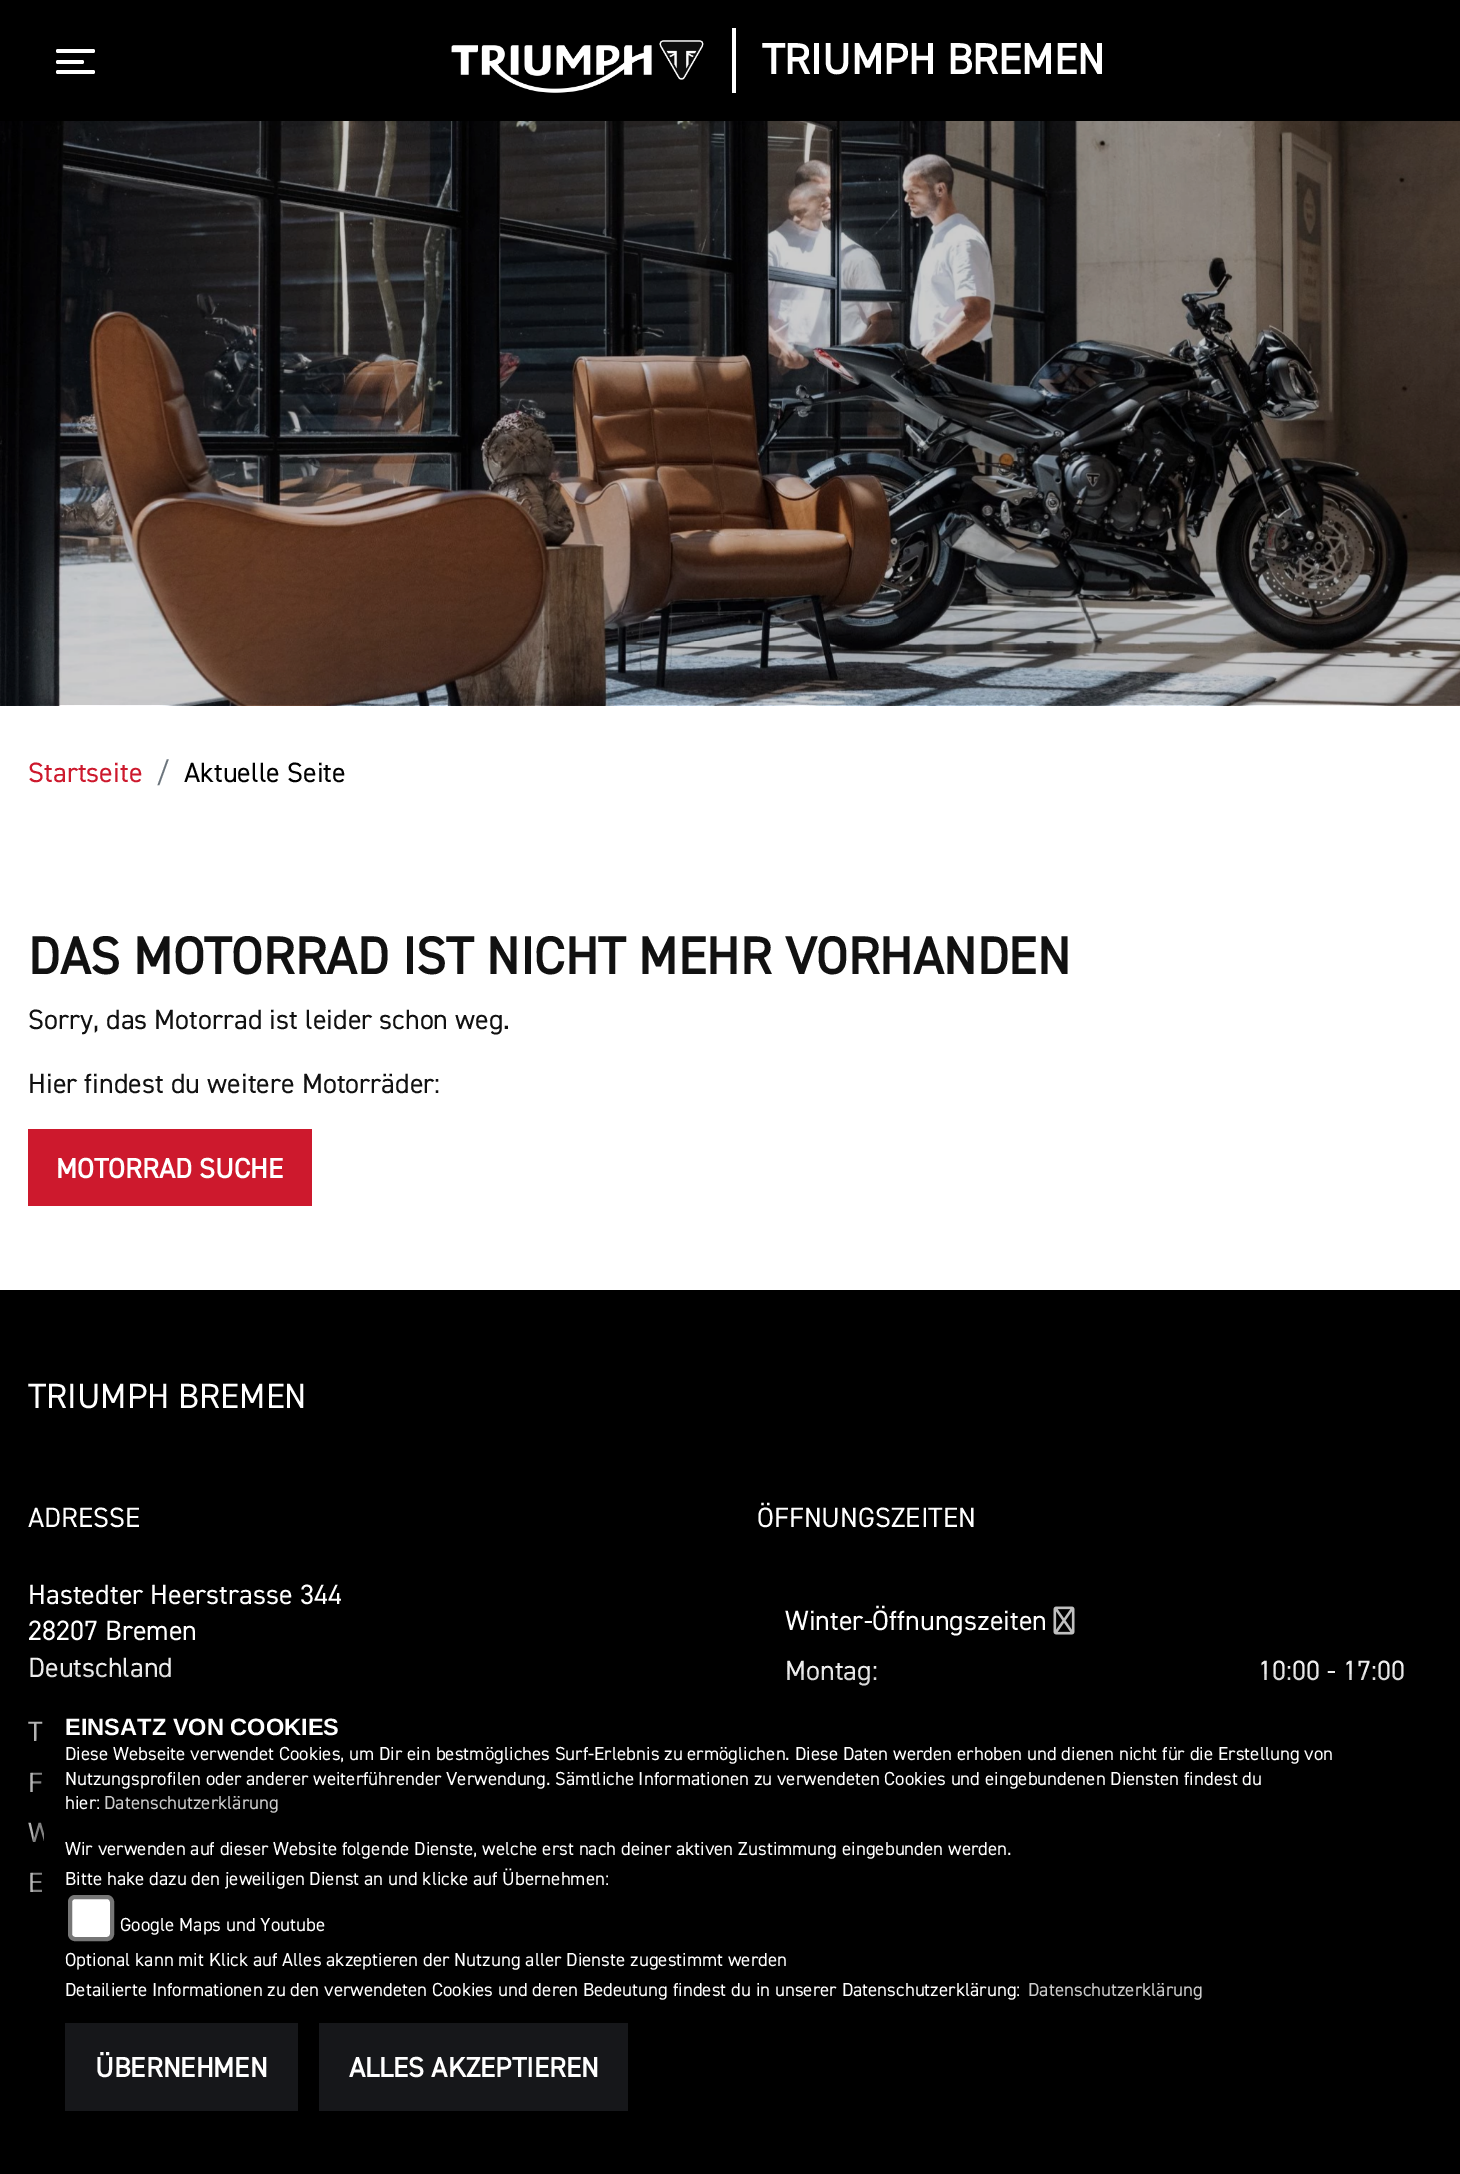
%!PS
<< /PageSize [1460 2174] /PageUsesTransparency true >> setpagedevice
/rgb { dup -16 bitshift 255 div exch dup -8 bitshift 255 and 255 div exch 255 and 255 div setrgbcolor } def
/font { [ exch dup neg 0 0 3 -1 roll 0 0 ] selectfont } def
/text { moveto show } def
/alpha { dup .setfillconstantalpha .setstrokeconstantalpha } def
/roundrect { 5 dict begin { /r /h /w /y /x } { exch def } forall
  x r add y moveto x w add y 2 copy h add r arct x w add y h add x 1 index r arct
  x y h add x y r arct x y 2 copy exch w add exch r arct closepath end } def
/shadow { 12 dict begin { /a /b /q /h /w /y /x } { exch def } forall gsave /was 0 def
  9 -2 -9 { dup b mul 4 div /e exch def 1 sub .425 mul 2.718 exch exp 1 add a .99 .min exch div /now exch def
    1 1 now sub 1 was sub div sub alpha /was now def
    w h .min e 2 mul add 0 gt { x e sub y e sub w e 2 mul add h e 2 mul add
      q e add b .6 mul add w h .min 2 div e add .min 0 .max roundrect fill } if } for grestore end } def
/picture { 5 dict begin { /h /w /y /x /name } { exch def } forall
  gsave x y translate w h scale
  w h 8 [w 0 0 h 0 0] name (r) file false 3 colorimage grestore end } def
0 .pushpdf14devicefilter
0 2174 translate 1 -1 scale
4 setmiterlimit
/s1 { /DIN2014-Bold 43 font 16#FFFFFF rgb } def
/s2 { /DIN2014-Regular 28 font 16#CD192D rgb } def
/s3 { /DIN2014-Regular 28 font 16#6C757D rgb } def
/s4 { /DIN2014-Regular 28 font 16#000000 rgb } def
/s5 { /DIN2014-Bold 52.5 font 16#111111 rgb } def
/s6 { /DIN2014-Regular 28 font 16#111111 rgb } def
/s7 { /DIN2014-Bold 28 font 16#FFFFFF rgb } def
/s8 { /DIN2014-Regular 35 font 16#FFFFFF rgb } def
/s9 { /DIN2014-Regular 28 font 16#FFFFFF rgb } def
/s10 { /LiberationSans-Bold 23.6 font 16#FFFFFF rgb } def
/s11 { /DIN2014-Regular 18.9 font 16#FFFFFF rgb } def
/s12 { /DIN2014-Regular 18.9 font 16#CCCCCC rgb } def
16#FFFFFF rgb
0 0 1460 2174 rectfill
16#000000 rgb
0 0 1460 121 rectfill
16#FFFFFF rgb
56 49 39 4 2 roundrect fill
56 60 28 4 2 roundrect fill
56 70 39 4 2 roundrect fill
(pic1.raw) 451 40 253 53 picture
732 28 4 65 rectfill
s1
(TRIUMPH BREMEN) 762 74 text
(pic2.raw) 0 121 1460 585 picture
s2
(Startseite) 28 782 text
s3
(/) 156 782 text
s4
(Aktuelle Seite) 184 782 text
s5
(DAS MOTORRAD IST NICHT MEHR VORHANDEN) 28 974 text
s6
(Sorry, das Motorrad ist leider schon weg.) 28 1029 text
(Hier findest du weitere Motorräder:) 28 1093 text
16#CD192D rgb
28 1129 284 77 rectfill
s7
(MOTORRAD SUCHE) 56 1178 text
16#000000 rgb
0 1290 1460 884 rectfill
s8
(TRIUMPH BREMEN) 28 1408 text
s9
(ADRESSE) 28 1527 text
(Hastedter Heerstrasse 344) 28 1604 text
(28207 Bremen) 28 1640 text
(Deutschland) 28 1677 text
(T) 28 1741 text
(F) 28 1792 text
(W) 28 1842 text
(E) 28 1892 text
(ÖFFNUNGSZEITEN) 757 1527 text
(Winter-Öffnungszeiten) 785 1630 text
(pic3.raw) 1053 1606 22 29 picture
(Montag:) 785 1680 text
(10:00 - 17:00) 1258 1680 text
gsave
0 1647 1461 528 rectclip
16#000000 rgb
44 1729 1374 441 0 44 1 shadow
grestore
16#000000 rgb
44 1822 8 20 rectfill
s10
(EINSATZ VON COOKIES) 65 1735 text
s11
(Diese Webseite verwendet Cookies, um Dir ein bestmögliches Surf-Erlebnis zu ermöglichen. Diese Daten werden erhoben und dienen nicht für die Erstellung von) 65 1760 text
65 1785 moveto -0.1 0 32 (Nutzungsprofilen oder anderer weiterführender Verwendung. Sämtliche Informationen zu verwendeten Cookies und eingebundenen Diensten findest du) widthshow
(hier:) 65 1809 text
s12
(Datenschutzerklärung) 104 1809 text
s11
(Wir verwenden auf dieser Website folgende Dienste, welche erst nach deiner aktiven Zustimmung eingebunden werden.) 65 1855 text
(Bitte hake dazu den jeweiligen Dienst an und klicke auf Übernehmen:) 65 1885 text
70 1897 42 42 5 roundrect gsave fill grestore
16#767676 rgb
4 setlinewidth
stroke
s11
(Google Maps und Youtube) 120 1931 text
(Optional kann mit Klick auf Alles akzeptieren der Nutzung aller Dienste zugestimmt werden) 65 1966 text
(Detailierte Informationen zu den verwendeten Cookies und deren Bedeutung findest du in unserer Datenschutzerklärung:) 65 1996 text
s12
(Datenschutzerklärung) 1028 1996 text
16#16171A rgb
65 2023 233 88 rectfill
s7
(ÜBERNEHMEN) 95 2077 text
16#16171A rgb
319 2023 309 88 rectfill
s7
(ALLES AKZEPTIEREN) 349 2077 text
.poppdf14devicefilter showpage
